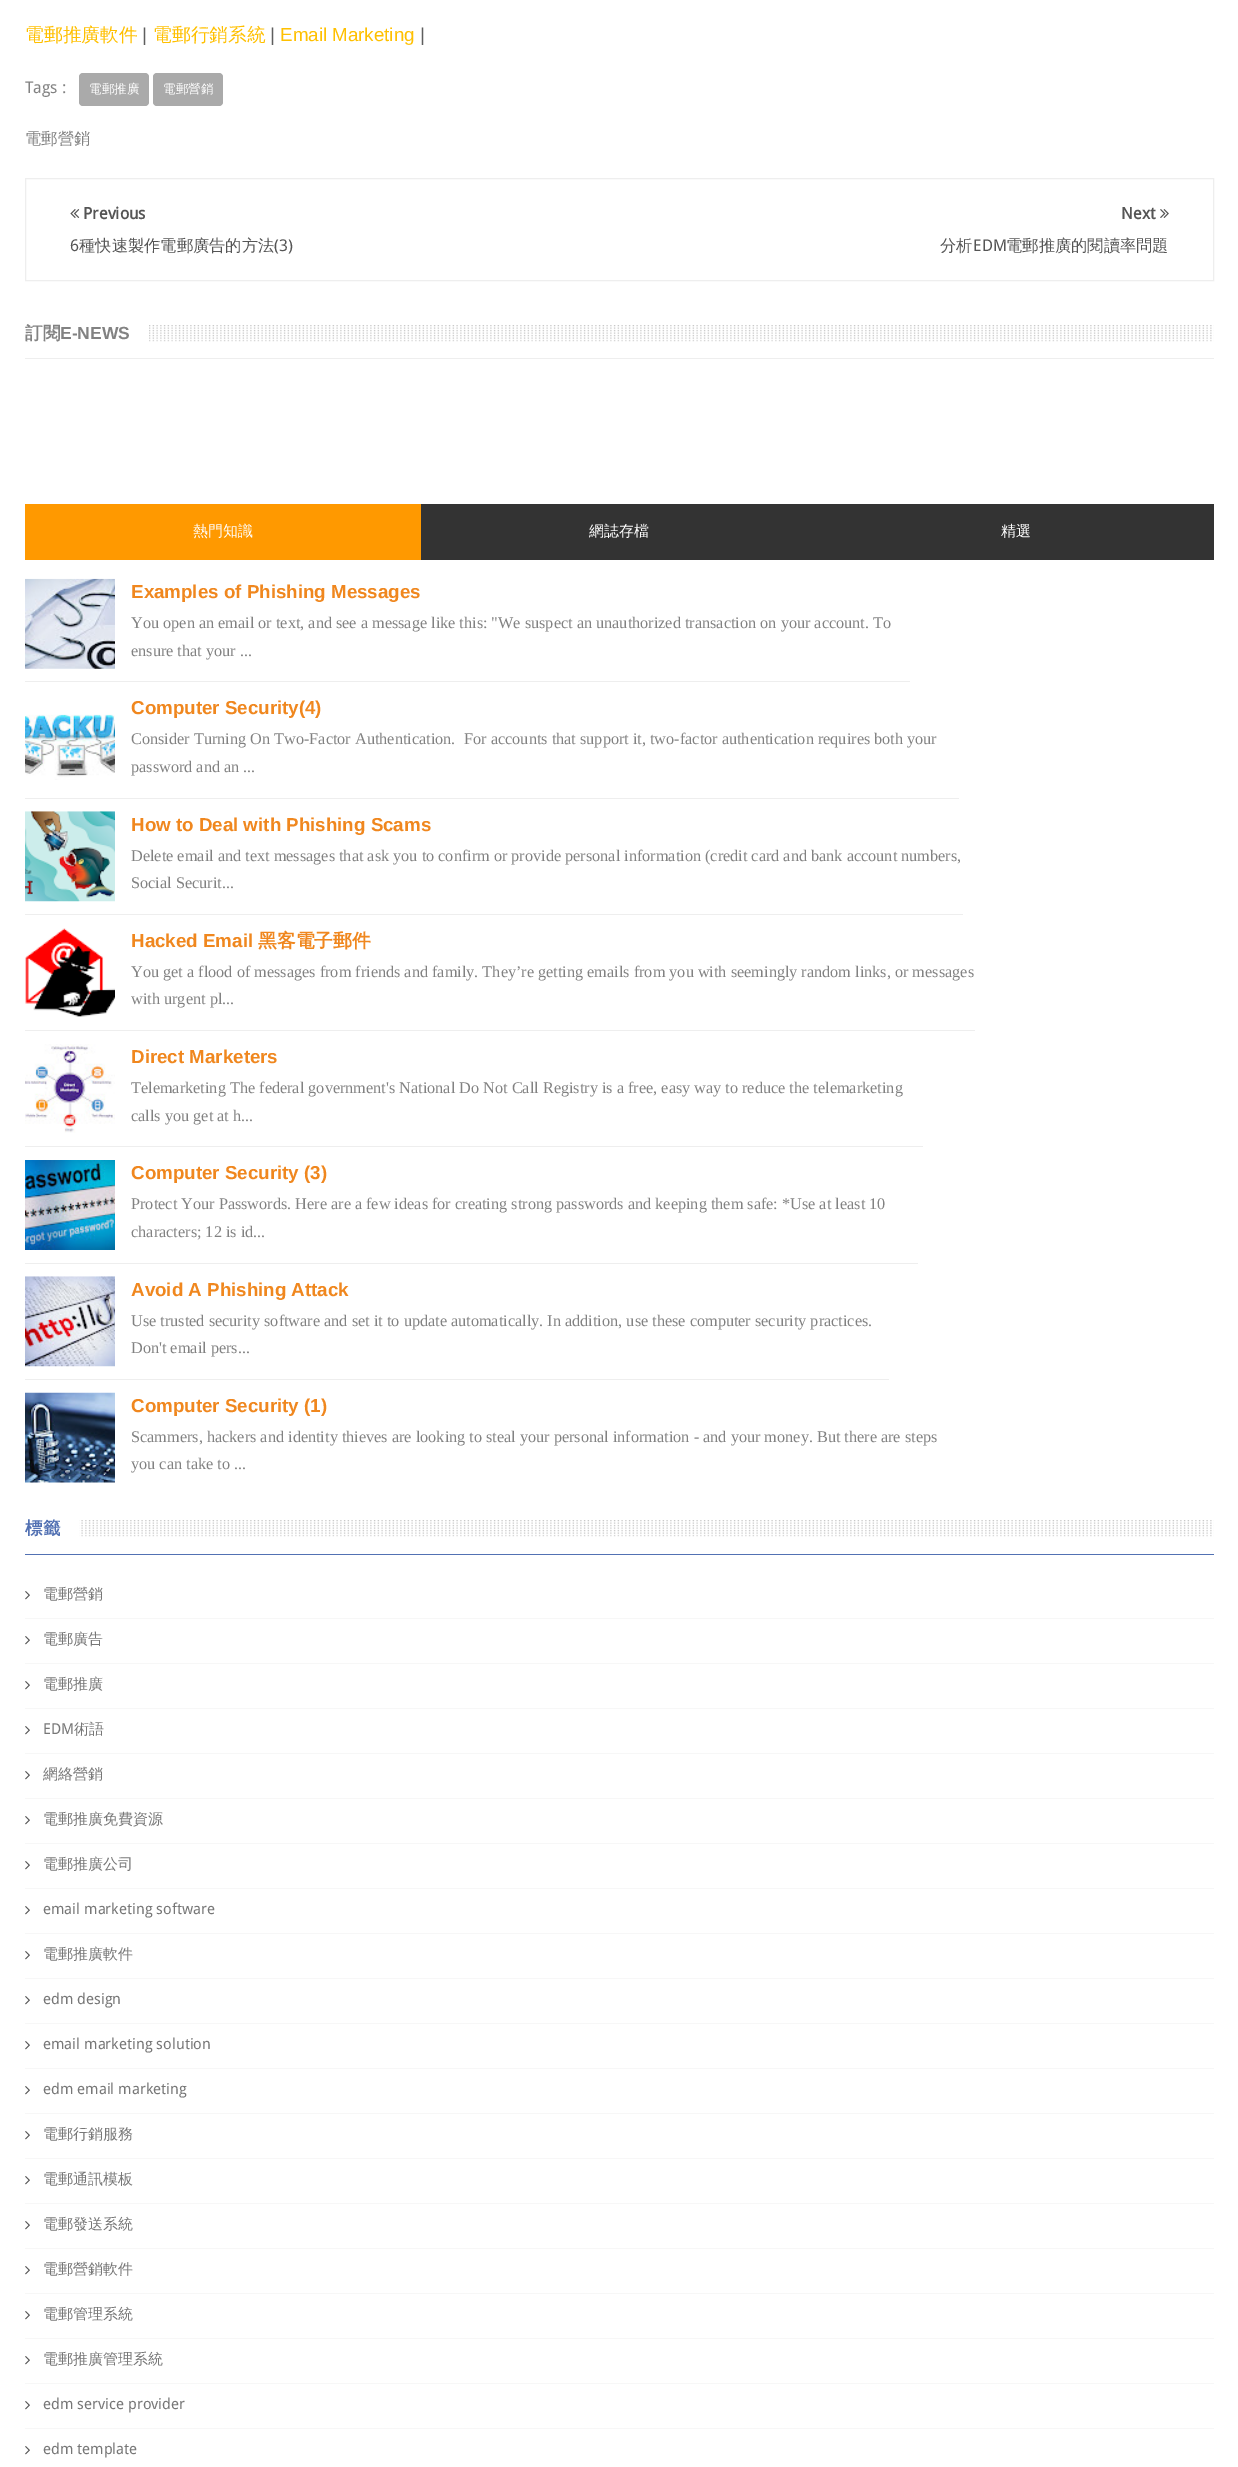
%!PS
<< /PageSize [1238 2467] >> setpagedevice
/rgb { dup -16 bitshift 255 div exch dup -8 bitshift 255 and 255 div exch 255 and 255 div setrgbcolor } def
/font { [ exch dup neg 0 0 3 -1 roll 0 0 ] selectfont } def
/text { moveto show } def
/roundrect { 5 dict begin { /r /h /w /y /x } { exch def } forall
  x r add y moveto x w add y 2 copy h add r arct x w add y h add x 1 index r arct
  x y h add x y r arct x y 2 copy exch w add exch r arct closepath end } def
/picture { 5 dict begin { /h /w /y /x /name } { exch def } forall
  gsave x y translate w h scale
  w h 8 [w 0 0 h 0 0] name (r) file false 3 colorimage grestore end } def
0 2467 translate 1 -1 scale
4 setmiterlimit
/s1 { /WenQuanYiZenHei-Medium 18.75 font 16#FFC000 rgb } def
/s2 { /LiberationSans-Regular 18.75 font 16#5E5E5E rgb } def
/s3 { /LiberationSans-Regular 18.75 font 16#FFC000 rgb } def
/s4 { /DroidSans-Regular 16.25 font 16#828282 rgb } def
/s5 { /WenQuanYiZenHei-Medium 12.5 font 16#FFFFFF rgb } def
/s6 { /WenQuanYiZenHei-Medium 16.25 font 16#828282 rgb } def
/s7 { /DroidSans-Bold 16.25 font 16#555555 rgb } def
/s8 { /DroidSans-Regular 16.25 font 16#555555 rgb } def
/s9 { /WenQuanYiZenHei-Medium 16.25 font 16#555555 rgb } def
/s10 { /WenQuanYiZenHei-Bold 17.5 font 16#828282 rgb } def
/s11 { /LiberationSans-Bold 17.5 font 16#828282 rgb } def
/s12 { /WenQuanYiZenHei-Medium 15 font 16#FFFFFF rgb } def
/s13 { /LiberationSans-Bold 18.75 font 16#F0871E rgb } def
/s14 { /LiberationSerif-Regular 16.25 font 16#828282 rgb } def
/s15 { /WenQuanYiZenHei-Bold 18.75 font 16#F0871E rgb } def
/s16 { /WenQuanYiZenHei-Bold 17.5 font 16#5271B3 rgb } def
/s17 { /WenQuanYiZenHei-Medium 15 font 16#777777 rgb } def
/s18 { /DroidSans-Regular 15 font 16#777777 rgb } def
16#FFFFFF rgb
0 0 1238 2467 rectfill
s1
(電郵推廣軟件) 25 41 text
s2
(|) 142 41 text
s1
(電郵行銷系統) 153 41 text
s2
(|) 270 41 text
s3
(Email Marketing) 280 41 text
s2
(|) 420 41 text
s4
(Tags :) 25 93 text
16#AAAAAA rgb
79 73 70 33 4 roundrect fill
s5
(電郵推廣) 89 93 text
16#AAAAAA rgb
153 73 70 33 4 roundrect fill
s5
(電郵營銷) 163 93 text
s6
(電郵營銷) 25 144 text
16#EEEEEE rgb
25.5 178.5 1188 102 rectstroke
(pic1.raw) 70 209 10 9 picture
s7
(Previous) 83 219 text
s8
(6) 70 251 text
s9
(種快速製作電郵廣告的方法) 79 251 text
s8
(\(3\)) 274 251 text
s7
(Next) 1121 219 text
(pic2.raw) 1160 209 9 9 picture
s9
(分析) 940 251 text
s8
(EDM) 973 251 text
s9
(電郵推廣的閱讀率問題) 1006 251 text
(pic3.raw) 149 325 1065 17 picture
16#EEEEEE rgb
25 358 1189 1 rectfill
s10
(訂閱) 25 339 text
s11
(E-NEWS) 60 339 text
16#FF9900 rgb
25 504 396 56 rectfill
s12
(熱門知識) 193 536 text
16#333333 rgb
421 504 793 56 rectfill
s12
(網誌存檔) 589 536 text
(精選) 1001 536 text
16#EEEEEE rgb
25 681 885 1 rectfill
(pic4.raw) 25 578 90 91 picture
s13
(Examples of Phishing Messages) 131 598 text
s14
(You open an email or text, and see a message like this: "We suspect an unauthorized transaction on your account. To) 131 628 text
(ensure that your ...) 131 656 text
16#EEEEEE rgb
25 798 934 1 rectfill
s13
(Computer Security\(4\)) 131 714 text
(pic5.raw) 25 714 90 66 picture
s14
(Consider Turning On Two-Factor Authentication.) 131 744 text
(For accounts that support it, two-factor authentication requires both your) 464 744 text
(password and an ...) 131 772 text
16#EEEEEE rgb
25 914 938 1 rectfill
(pic6.raw) 25 811 90 91 picture
s13
(How to Deal with Phishing Scams) 131 831 text
s14
(Delete email and text messages that ask you to confirm or provide personal information \(credit card and bank account numbers,) 131 861 text
(Social Securit...) 131 888 text
16#EEEEEE rgb
25 1030 950 1 rectfill
(pic7.raw) 25 928 90 89 picture
s13
(Hacked Email) 131 947 text
s15
(黑客電子郵件) 258 947 text
s14
(You get a flood of messages from friends and family. They’re getting emails from you with seemingly random links, or messages) 131 977 text
(with urgent pl...) 131 1004 text
16#EEEEEE rgb
25 1146 898 1 rectfill
(pic8.raw) 25 1044 90 89 picture
s13
(Direct Marketers) 131 1063 text
s14
(Telemarketing The federal government's National Do Not Call Registry is a free, easy way to reduce the telemarketing) 131 1093 text
(calls you get at h...) 131 1121 text
16#EEEEEE rgb
25 1263 893 1 rectfill
(pic9.raw) 25 1160 90 90 picture
s13
(Computer Security \(3\)) 131 1179 text
s14
(Protect Your Passwords. Here are a few ideas for creating strong passwords and keeping them safe: *Use at least 10) 131 1209 text
(characters; 12 is id...) 131 1237 text
16#EEEEEE rgb
25 1379 864 1 rectfill
(pic10.raw) 25 1276 90 91 picture
s13
(Avoid A Phishing Attack) 131 1296 text
s14
(Use trusted security software and set it to update automatically. In addition, use these computer security practices.) 131 1326 text
(Don't email pers...) 131 1353 text
(pic11.raw) 25 1392 90 91 picture
s13
(Computer Security \(1\)) 131 1412 text
s14
(Scammers, hackers and identity thieves are looking to steal your personal information - and your money. But there are steps) 131 1442 text
(you can take to ...) 131 1469 text
(pic12.raw) 79 1520 1135 17 picture
16#5271B3 rgb
25 1554 1189 1 rectfill
s16
(標籤) 25 1534 text
16#F7F7F7 rgb
25 1618 1189 1 rectfill
(pic13.raw) 25 1591 5 9 picture
s17
(電郵營銷) 43 1599 text
16#F7F7F7 rgb
25 1663 1189 1 rectfill
(pic13.raw) 25 1636 5 9 picture
s17
(電郵廣告) 43 1644 text
16#F7F7F7 rgb
25 1708 1189 1 rectfill
(pic13.raw) 25 1681 5 9 picture
s17
(電郵推廣) 43 1689 text
16#F7F7F7 rgb
25 1753 1189 1 rectfill
(pic13.raw) 25 1726 5 9 picture
s18
(EDM) 43 1734 text
s17
(術語) 74 1734 text
16#F7F7F7 rgb
25 1798 1189 1 rectfill
(pic13.raw) 25 1771 5 9 picture
s17
(網絡營銷) 43 1779 text
16#F7F7F7 rgb
25 1843 1189 1 rectfill
(pic13.raw) 25 1816 5 9 picture
s17
(電郵推廣免費資源) 43 1824 text
16#F7F7F7 rgb
25 1888 1189 1 rectfill
(pic13.raw) 25 1861 5 9 picture
s17
(電郵推廣公司) 43 1869 text
16#F7F7F7 rgb
25 1933 1189 1 rectfill
(pic13.raw) 25 1906 5 9 picture
s18
(email marketing software) 43 1914 text
16#F7F7F7 rgb
25 1978 1189 1 rectfill
(pic13.raw) 25 1951 5 9 picture
s17
(電郵推廣軟件) 43 1959 text
16#F7F7F7 rgb
25 2023 1189 1 rectfill
(pic13.raw) 25 1996 5 9 picture
s18
(edm design) 43 2004 text
16#F7F7F7 rgb
25 2068 1189 1 rectfill
(pic13.raw) 25 2041 5 9 picture
s18
(email marketing solution) 43 2049 text
16#F7F7F7 rgb
25 2113 1189 1 rectfill
(pic13.raw) 25 2086 5 9 picture
s18
(edm email marketing) 43 2094 text
16#F7F7F7 rgb
25 2158 1189 1 rectfill
(pic13.raw) 25 2131 5 9 picture
s17
(電郵行銷服務) 43 2139 text
16#F7F7F7 rgb
25 2203 1189 1 rectfill
(pic13.raw) 25 2176 5 9 picture
s17
(電郵通訊模板) 43 2184 text
16#F7F7F7 rgb
25 2248 1189 1 rectfill
(pic13.raw) 25 2221 5 9 picture
s17
(電郵發送系統) 43 2229 text
16#F7F7F7 rgb
25 2293 1189 1 rectfill
(pic13.raw) 25 2266 5 9 picture
s17
(電郵營銷軟件) 43 2274 text
16#F7F7F7 rgb
25 2338 1189 1 rectfill
(pic13.raw) 25 2311 5 9 picture
s17
(電郵管理系統) 43 2319 text
16#F7F7F7 rgb
25 2383 1189 1 rectfill
(pic13.raw) 25 2356 5 9 picture
s17
(電郵推廣管理系統) 43 2364 text
16#F7F7F7 rgb
25 2428 1189 1 rectfill
(pic13.raw) 25 2401 5 9 picture
s18
(edm service provider) 43 2409 text
(pic13.raw) 25 2446 5 9 picture
(edm template) 43 2454 text
showpage
